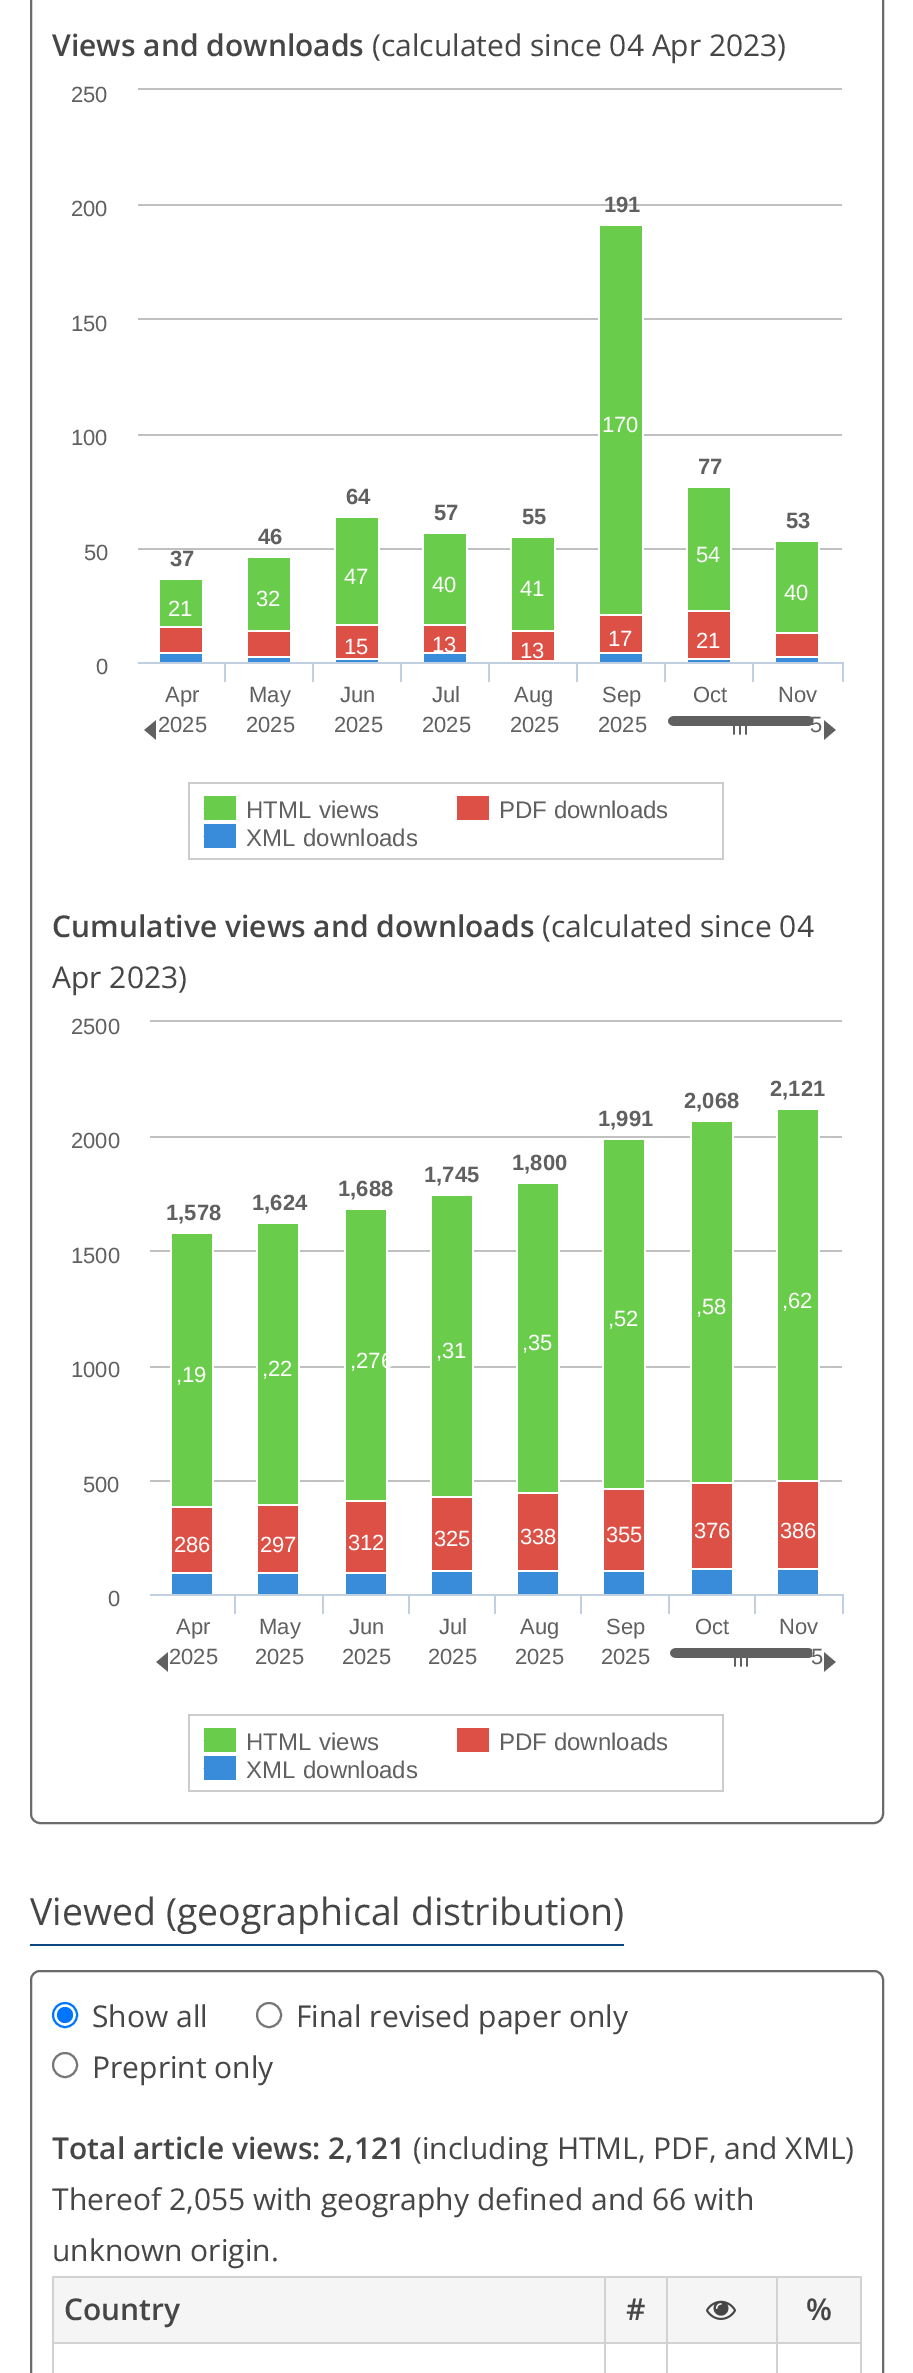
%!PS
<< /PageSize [913 2373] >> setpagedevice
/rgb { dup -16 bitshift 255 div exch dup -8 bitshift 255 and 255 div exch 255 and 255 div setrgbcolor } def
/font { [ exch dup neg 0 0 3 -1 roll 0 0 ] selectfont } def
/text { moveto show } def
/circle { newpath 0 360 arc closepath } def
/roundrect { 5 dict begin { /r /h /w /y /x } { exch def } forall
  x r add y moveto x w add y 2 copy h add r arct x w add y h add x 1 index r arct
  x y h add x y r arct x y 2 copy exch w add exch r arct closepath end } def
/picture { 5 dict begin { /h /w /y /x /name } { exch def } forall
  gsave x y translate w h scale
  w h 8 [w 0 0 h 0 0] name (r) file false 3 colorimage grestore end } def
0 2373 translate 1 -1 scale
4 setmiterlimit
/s1 { /OpenSans-SemiBold 30 font 16#464646 rgb } def
/s2 { /OpenSans-Regular 30 font 16#464646 rgb } def
/s3 { /LiberationSans-Regular 22 font 16#606060 rgb } def
/s4 { /LiberationSans-Bold 22 font 16#606060 rgb } def
/s5 { /LiberationSans-Regular 22 font 16#FFFFFF rgb } def
/s6 { /LiberationSans-Regular 24 font 16#606060 rgb } def
/s7 { /OpenSans-Regular 37.5 font 16#464646 rgb } def
16#FFFFFF rgb
0 0 913 2373 rectfill
16#6A6A6A rgb
2 setlinewidth
31 -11 852 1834 9 roundrect stroke
s1
(Views and downloads) 52 56 text
s2
(\(calculated since 04 Apr 2023\)) 372 56 text
s3
(250) 71 102 text
(pic1.raw) 138 88 706 772 picture
(200) 71 216 text
s4
(191) 604 212 text
s3
(150) 71 331 text
s5
(170) 602 432 text
s3
(100) 71 445 text
s4
(77) 698 474 text
(64) 346 504 text
(57) 434 520 text
(55) 522 524 text
(53) 786 528 text
(46) 258 544 text
s3
(50) 84 560 text
s4
(37) 170 566 text
s5
(54) 696 562 text
(21) 168 616 text
(32) 256 606 text
(47) 344 584 text
(40) 432 592 text
(41) 520 596 text
(40) 784 600 text
(15) 344 654 text
(13) 432 652 text
(13) 520 658 text
(17) 608 646 text
(21) 696 648 text
s3
(0) 96 674 text
(Apr) 165 702 text
(May) 249 702 text
(Jun) 340 702 text
(Jul) 432 702 text
(Aug) 514 702 text
(Sep) 602 702 text
(Oct) 693 702 text
(Nov) 778 702 text
(2025) 158 732 text
(2025) 246 732 text
(2025) 334 732 text
(2025) 422 732 text
(2025) 510 732 text
(2025) 598 732 text
(5) 810 732 text
16#69CD4B rgb
4.2 setlinewidth
205 807 moveto 210.5 812 lineto 221 799 lineto stroke
/LiberationSans-Regular 24 font
16#606060 rgb
246 818 moveto 1 0 32 (HTML views) widthshow
(PDF downloads) 499 818 text
16#398CDA rgb
205 835 moveto 210.5 840 lineto 221 827 lineto stroke
16#606060 rgb
246 846 moveto 1 0 32 (XML downloads) widthshow
s1
(Cumulative views and downloads) 52 937 text
s2
(\(calculated since 04) 542 937 text
(Apr 2023\)) 52 988 text
s3
(2500) 71 1034 text
(pic2.raw) 150 1020 694 772 picture
s4
(2,121) 770 1096 text
(2,068) 684 1108 text
(1,991) 598 1126 text
s3
(2000) 71 1148 text
s4
(1,800) 512 1170 text
(1,745) 424 1182 text
(1,688) 338 1196 text
(1,578) 166 1220 text
(1,624) 252 1210 text
s3
(1500) 71 1263 text
s5
(,58) 696 1314 text
(,62) 782 1308 text
(,52) 608 1326 text
s3
(1000) 71 1377 text
s5
(,19) 176 1382 text
(,22) 262 1376 text
(,276) 350 1368 text
(,31) 436 1358 text
(,35) 522 1350 text
s3
(500) 83 1492 text
s5
(286) 174 1552 text
(297) 260 1552 text
(312) 348 1550 text
(325) 434 1546 text
(338) 520 1544 text
(355) 606 1542 text
(376) 694 1538 text
(386) 780 1538 text
s3
(0) 108 1606 text
(Apr) 176 1634 text
(May) 259 1634 text
(Jun) 349 1634 text
(Jul) 439 1634 text
(Aug) 520 1634 text
(Sep) 606 1634 text
(Oct) 695 1634 text
(Nov) 779 1634 text
(2025) 169 1664 text
(2025) 255 1664 text
(2025) 342 1664 text
(2025) 428 1664 text
(2025) 515 1664 text
(2025) 601 1664 text
(5) 811 1664 text
16#69CD4B rgb
205 1739 moveto 210.5 1744 lineto 221 1731 lineto stroke
/LiberationSans-Regular 24 font
16#606060 rgb
246 1750 moveto 1 0 32 (HTML views) widthshow
(PDF downloads) 499 1750 text
16#398CDA rgb
205 1767 moveto 210.5 1772 lineto 221 1759 lineto stroke
16#606060 rgb
246 1778 moveto 1 0 32 (XML downloads) widthshow
16#0A487E rgb
30 1944 594 2 rectfill
s7
(Viewed \(geographical distribution\)) 30 1925 text
16#6A6A6A rgb
2 setlinewidth
31 1971 852 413 9 roundrect stroke
16#0075FF rgb
65 2015 12 circle stroke
65 2015 8 circle fill
s2
(Show all) 92 2027 text
16#767676 rgb
269 2015 12 circle stroke
s2
(Final revised paper only) 296 2027 text
16#767676 rgb
65 2065 12 circle stroke
s2
(Preprint only) 92 2078 text
s1
(Total article views: 2,121) 52 2159 text
s2
(\(including HTML, PDF, and XML\)) 413 2159 text
(Thereof 2,055 with geography defined and 66 with) 52 2210 text
(unknown origin.) 52 2261 text
16#F5F5F5 rgb
54 2278 550 64 rectfill
16#D2D2D2 rgb
776 2276 86 2 rectfill
776 2342 86 2 rectfill
776 2342 2 31 rectfill
666 2342 112 2 rectfill
776 2276 2 68 rectfill
666 2276 112 2 rectfill
666 2342 2 31 rectfill
604 2342 64 2 rectfill
666 2276 2 68 rectfill
604 2276 64 2 rectfill
604 2342 2 31 rectfill
52 2342 554 2 rectfill
604 2276 2 68 rectfill
52 2276 554 2 rectfill
52 2342 2 31 rectfill
52 2276 2 68 rectfill
s1
(Country) 64 2320 text
16#F5F5F5 rgb
606 2278 60 64 rectfill
s1
(#) 626 2320 text
16#F5F5F5 rgb
668 2278 108 64 rectfill
(pic3.raw) 706 2300 30 20 picture
778 2278 82 64 rectfill
16#D2D2D2 rgb
860 2342 2 31 rectfill
860 2276 2 68 rectfill
s1
(%) 806 2320 text
showpage
